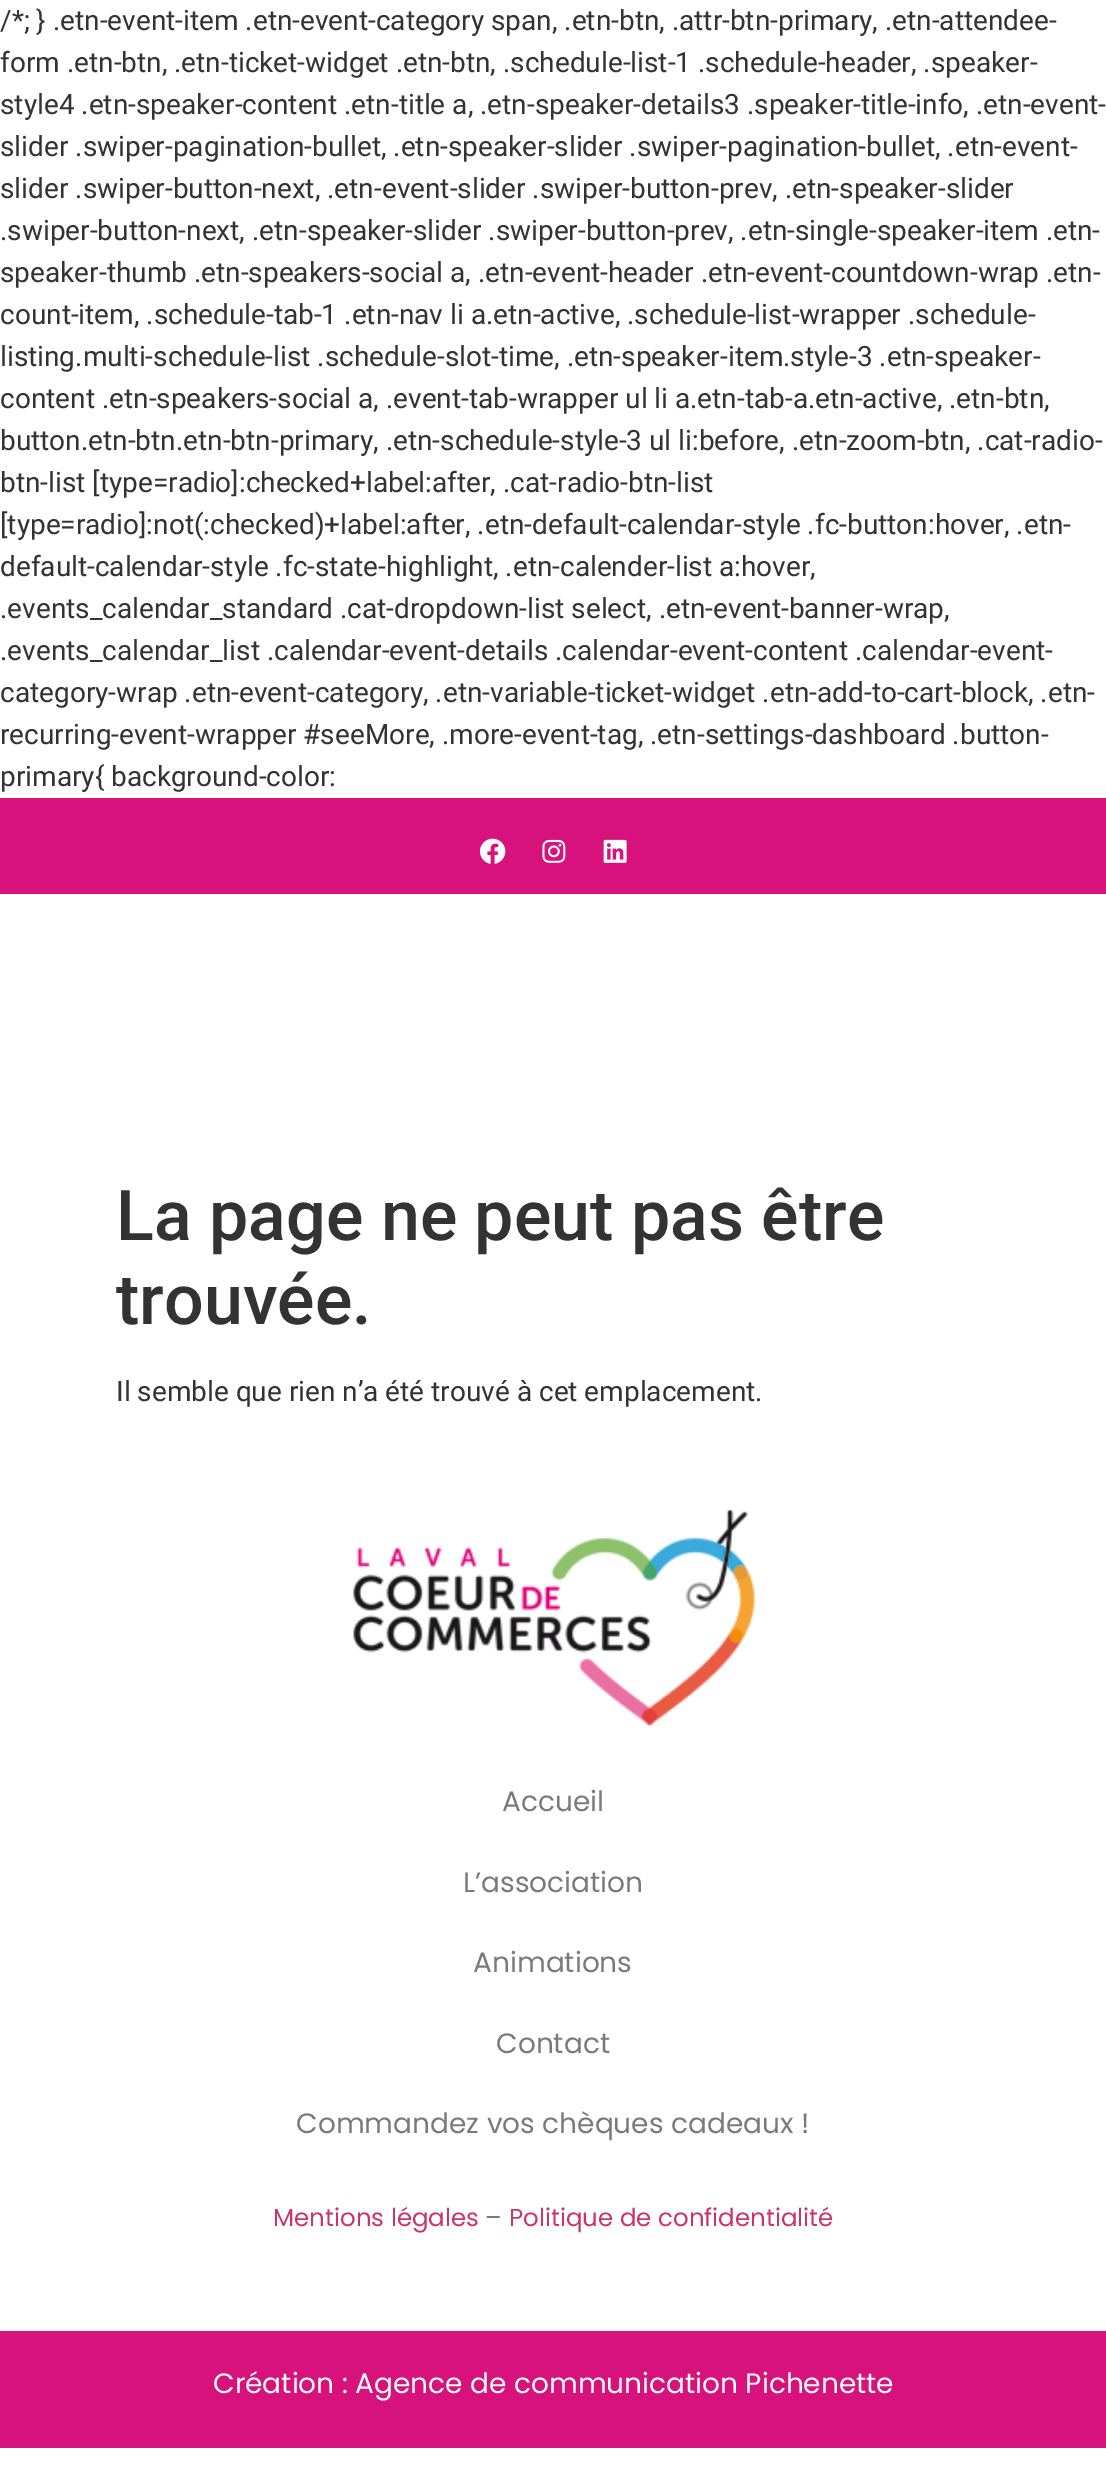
%!PS
<< /PageSize [1106 2475] >> setpagedevice
/rgb { dup -16 bitshift 255 div exch dup -8 bitshift 255 and 255 div exch 255 and 255 div setrgbcolor } def
/font { [ exch dup neg 0 0 3 -1 roll 0 0 ] selectfont } def
/text { moveto show } def
/picture { 5 dict begin { /h /w /y /x /name } { exch def } forall
  gsave x y translate w h scale
  w h 8 [w 0 0 h 0 0] name (r) file false 3 colorimage grestore end } def
0 2475 translate 1 -1 scale
4 setmiterlimit
/s1 { /Roboto-Regular 28 font 16#333333 rgb } def
/s2 { /Roboto-Medium 70 font 16#333333 rgb } def
/s3 { /Poppins-Regular 28 font 16#7A7A7A rgb } def
/s4 { /Poppins-Regular 24.5 font 16#CC3366 rgb } def
/s5 { /Poppins-Regular 24.5 font 16#7A7A7A rgb } def
/s6 { /Poppins-Regular 28 font 16#FFFFFF rgb } def
16#FFFFFF rgb
0 0 1106 2475 rectfill
s1
(/*; } .etn-event-item .etn-event-category span, .etn-btn, .attr-btn-primary, .etn-attendee-) 0 30 text
(form .etn-btn, .etn-ticket-widget .etn-btn, .schedule-list-1 .schedule-header, .speaker-) 0 72 text
(style4 .etn-speaker-content .etn-title a, .etn-speaker-details3 .speaker-title-info, .etn-event-) 0 114 text
(slider .swiper-pagination-bullet, .etn-speaker-slider .swiper-pagination-bullet, .etn-event-) 0 156 text
(slider .swiper-button-next, .etn-event-slider .swiper-button-prev, .etn-speaker-slider) 0 198 text
(.swiper-button-next, .etn-speaker-slider .swiper-button-prev, .etn-single-speaker-item .etn-) 0 240 text
(speaker-thumb .etn-speakers-social a, .etn-event-header .etn-event-countdown-wrap .etn-) 0 282 text
(count-item, .schedule-tab-1 .etn-nav li a.etn-active, .schedule-list-wrapper .schedule-) 0 324 text
(listing.multi-schedule-list .schedule-slot-time, .etn-speaker-item.style-3 .etn-speaker-) 0 366 text
(content .etn-speakers-social a, .event-tab-wrapper ul li a.etn-tab-a.etn-active, .etn-btn,) 0 408 text
(button.etn-btn.etn-btn-primary, .etn-schedule-style-3 ul li:before, .etn-zoom-btn, .cat-radio-) 0 450 text
(btn-list [type=radio]:checked+label:after, .cat-radio-btn-list) 0 492 text
([type=radio]:not\(:checked\)+label:after, .etn-default-calendar-style .fc-button:hover, .etn-) 0 534 text
(default-calendar-style .fc-state-highlight, .etn-calender-list a:hover,) 0 576 text
(.events_calendar_standard .cat-dropdown-list select, .etn-event-banner-wrap,) 0 618 text
(.events_calendar_list .calendar-event-details .calendar-event-content .calendar-event-) 0 660 text
(category-wrap .etn-event-category, .etn-variable-ticket-widget .etn-add-to-cart-block, .etn-) 0 702 text
(recurring-event-wrapper #seeMore, .more-event-tag, .etn-settings-dashboard .button-) 0 744 text
(primary{ background-color:) 0 786 text
16#D7127C rgb
0 798 1106 96 rectfill
(pic1.raw) 480 838 26 26 picture
(pic2.raw) 542 839 24 24 picture
(pic3.raw) 603 839 24 24 picture
s2
(La page ne peut pas être) 116 1240 text
(trouvée.) 116 1324 text
s1
(Il semble que rien n’a été trouvé à cet emplacement.) 116 1401 text
(pic4.raw) 353 1509 402 217 picture
s3
(Accueil) 502 1811 text
(L’association) 463 1892 text
(Animations) 473 1972 text
(Contact) 496 2053 text
(Commandez vos chèques cadeaux !) 296 2133 text
s4
(Mentions légales) 273 2226 text
s5
(–) 485 2226 text
s4
(Politique de confidentialité) 509 2226 text
16#D7127C rgb
0 2331 1106 117 rectfill
s6
(Création : Agence de communication Pichenette) 213 2393 text
showpage
